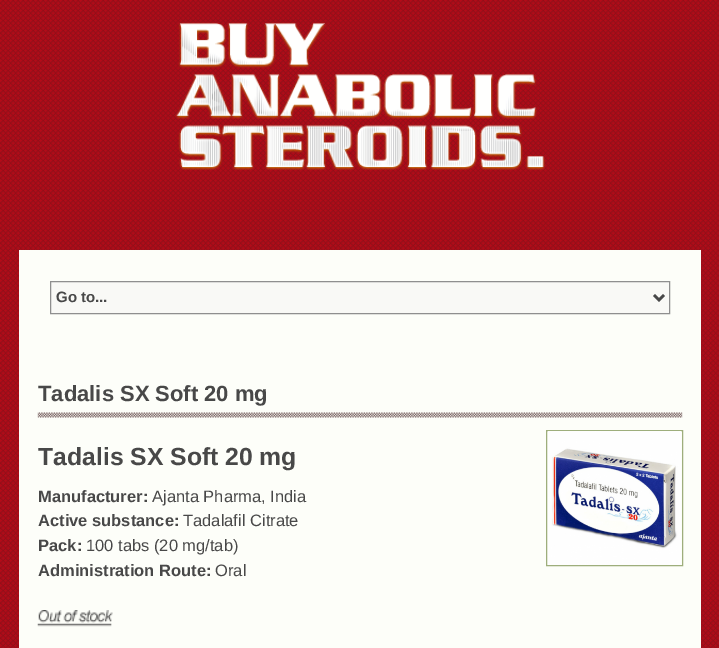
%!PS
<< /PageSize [719 648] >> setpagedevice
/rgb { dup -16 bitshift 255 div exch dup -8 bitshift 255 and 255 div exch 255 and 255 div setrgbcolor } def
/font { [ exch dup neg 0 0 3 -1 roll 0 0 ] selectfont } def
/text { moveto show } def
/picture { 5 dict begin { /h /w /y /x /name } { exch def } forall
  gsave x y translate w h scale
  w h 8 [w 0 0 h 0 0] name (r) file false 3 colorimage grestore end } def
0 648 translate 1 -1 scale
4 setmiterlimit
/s1 { /LiberationSans-Bold 15 font 16#484848 rgb } def
/s2 { /LiberationSans-Bold 22 font 16#484848 rgb } def
/s3 { /LiberationSans-Bold 24.75 font 16#484848 rgb } def
/s4 { /LiberationSans-Bold 16.5 font 16#484848 rgb } def
/s5 { /LiberationSans-Regular 16.5 font 16#484848 rgb } def
16#FFFFFF rgb
0 0 719 648 rectfill
(pic1.raw) 0 0 719 648 picture
(pic2.raw) 175 22 370 148 picture
16#FDFEF9 rgb
19 250 682 398 rectfill
16#F9F9F6 rgb
50.5 281.5 moveto 669.5 281.5 lineto 669.5 313.5 lineto 50.5 313.5 lineto closepath gsave fill grestore
16#8F8F8F rgb
stroke
16#484848 rgb
2.5 setlinewidth
654 295 moveto 659 300 lineto 664 295 lineto stroke
s1
(Go to...) 56 302 text
(pic3.raw) 37 412 646 6 picture
gsave
38 370 645 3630 rectclip
s2
(Tadalis SX Soft 20 mg) 38 401 text
s3
(Tadalis SX Soft 20 mg) 38 465 text
grestore
s4
(Manufacturer:) 38 502 text
s5
(Ajanta Pharma, India) 152 502 text
s4
(Active substance:) 38 526 text
s5
(Tadalafil Citrate) 183 526 text
s4
(Pack:) 38 551 text
s5
(100 tabs \(20 mg/tab\)) 86 551 text
s4
(Administration Route:) 38 576 text
s5
(Oral) 215 576 text
(pic4.raw) 37 610 76 17 picture
16#9EAE7C rgb
1 setlinewidth
546.5 430.5 136 135 rectstroke
(pic5.raw) 548 431 133 134 picture
showpage
